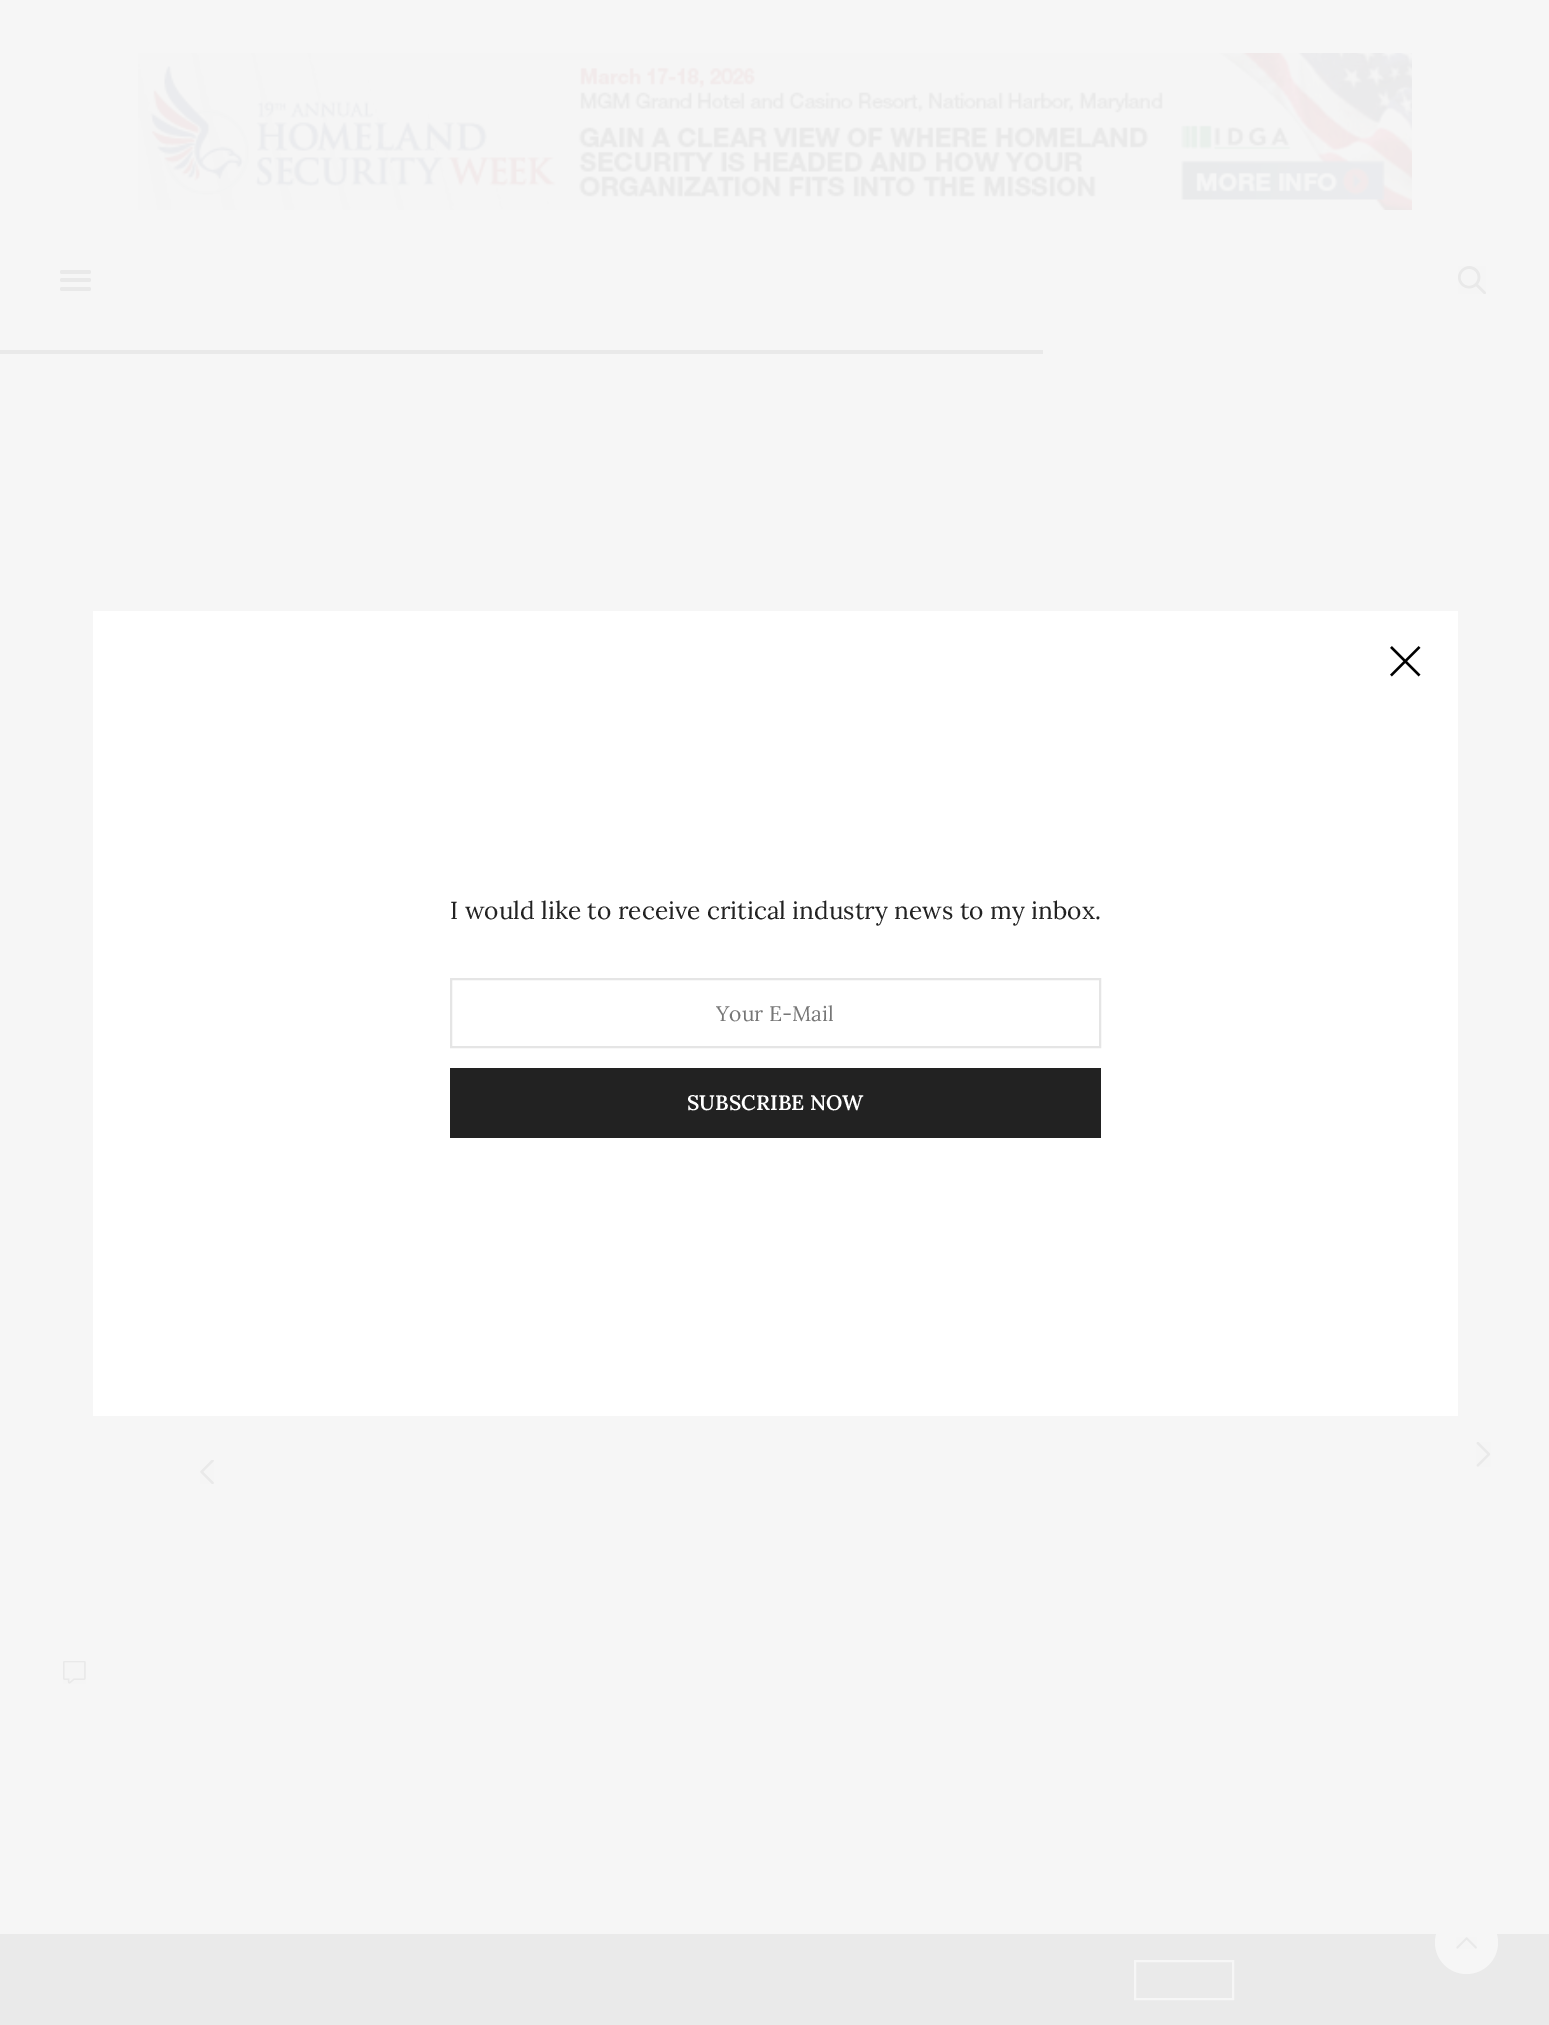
%!PS
<< /PageSize [1549 2025] >> setpagedevice
/rgb { dup -16 bitshift 255 div exch dup -8 bitshift 255 and 255 div exch 255 and 255 div setrgbcolor } def
/font { [ exch dup neg 0 0 3 -1 roll 0 0 ] selectfont } def
/text { moveto show } def
/circle { newpath 0 360 arc closepath } def
/roundrect { 5 dict begin { /r /h /w /y /x } { exch def } forall
  x r add y moveto x w add y 2 copy h add r arct x w add y h add x 1 index r arct
  x y h add x y r arct x y 2 copy exch w add exch r arct closepath end } def
/picture { 5 dict begin { /h /w /y /x /name } { exch def } forall
  gsave x y translate w h scale
  w h 8 [w 0 0 h 0 0] name (r) file false 3 colorimage grestore end } def
0 2025 translate 1 -1 scale
4 setmiterlimit
/s1 { /Lora-Regular 24.5 font 16#222222 rgb } def
/s2 { /Lora-Regular 21 font 16#767676 rgb } def
/s3 { /Lora-SemiBold 21 font 16#FFFFFF rgb } def
16#F6F6F6 rgb
0 0 1549 2025 rectfill
(pic1.raw) 138 53 1274 157 picture
16#E9E9E9 rgb
60 270 31 4 2 roundrect fill
60 278 31 4 2 roundrect fill
60 287 31 4 2 roundrect fill
(pic2.raw) 1458 266 28 28 picture
0 350 1043 4 rectfill
(pic3.raw) 1476 1442 15 25 picture
(pic4.raw) 200 1460 14 24 picture
(pic5.raw) 63 1661 23 23 picture
16#FFFFFF rgb
93 611 1365 805 rectfill
16#000000 rgb
2.2 setlinewidth
1391 647 moveto 1419.5 675.5 lineto 1391 675.5 moveto 1419.5 647 lineto stroke
s1
(I would like to receive critical industry news to my inbox.) 450 919 text
16#E5E5E5 rgb
2 setlinewidth
451 979 649 68 rectstroke
s2
(Your E-Mail) 716 1021 text
16#222222 rgb
450 1068 651 70 rectfill
s3
(SUBSCRIBE NOW) 687 1110 text
16#EAEAEA rgb
0 1934 1549 91 rectfill
16#F6F6F6 rgb
1466.5 1942.5 31.5 circle fill
(pic6.raw) 1456 1937 21 12 picture
1135 1961 98 38 rectstroke
showpage
